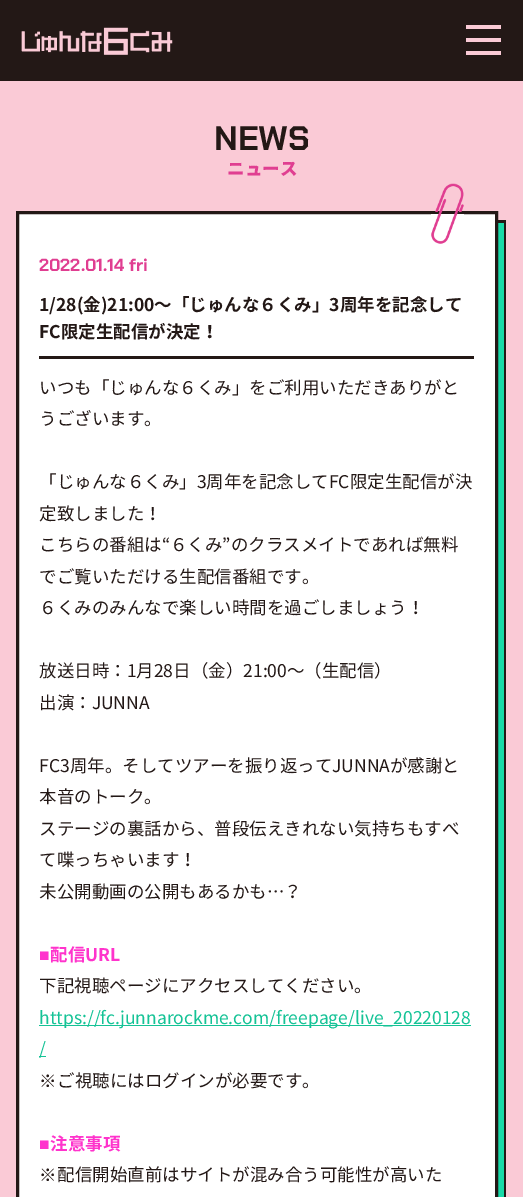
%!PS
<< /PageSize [523 1197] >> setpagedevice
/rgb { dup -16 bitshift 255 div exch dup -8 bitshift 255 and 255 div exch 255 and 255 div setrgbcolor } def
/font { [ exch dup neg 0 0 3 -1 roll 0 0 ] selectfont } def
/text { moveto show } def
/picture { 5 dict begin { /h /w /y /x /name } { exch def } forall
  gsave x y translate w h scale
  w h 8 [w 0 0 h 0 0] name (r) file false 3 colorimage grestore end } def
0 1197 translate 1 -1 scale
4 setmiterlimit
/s1 { /ChakraPetch-Bold 34 font 16#231816 rgb } def
/s2 { /NotoSansJP-Black 17.5 font 16#E03E91 rgb } def
/s3 { /ChakraPetch-Bold 17.5 font 16#E03E91 rgb } def
/s4 { /NotoSansJP-Bold 17.5 font 16#231816 rgb } def
/s5 { /NotoSansJP-Regular 17.5 font 16#231816 rgb } def
/s6 { /LiberationSans-Bold 17.5 font 16#FF33CC rgb } def
/s7 { /NotoSansJP-Bold 17.5 font 16#FF33CC rgb } def
/s8 { /NotoSansJP-Regular 17.5 font 16#14C396 rgb } def
/s9 { /WenQuanYiZenHei-Medium 17.5 font 16#231816 rgb } def
16#FACAD6 rgb
0 0 523 1197 rectfill
16#231816 rgb
0 0 523 81 rectfill
(pic1.raw) 21 27 152 28 picture
16#FACAD6 rgb
466 25 35 4 rectfill
466 38 35 4 rectfill
466 51 35 4 rectfill
s1
(NEWS) 214 150 text
s2
(ニュース) 227 175 text
16#231816 rgb
25 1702 moveto 25 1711 lineto 506 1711 lineto 506 220 lineto 498 220 lineto 498 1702 lineto closepath fill
16#18DAA8 rgb
28 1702 moveto 28 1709 lineto 504 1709 lineto 504 223 lineto 498 223 lineto 498 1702 lineto closepath fill
16#FFFFFF rgb
17.5 212.5 moveto 496.5 212.5 lineto 496.5 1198.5 lineto 17.5 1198.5 lineto closepath gsave fill grestore
16#231816 rgb
3 setlinewidth
stroke
(pic2.raw) 431 183 33 61 picture
s3
(2022.01.14 fri) 39 271 text
16#231816 rgb
39 356 435 3 rectfill
s4
(1/28\(金\)21:00〜「じゅんな６くみ」3周年を記念して) 39 311 text
(FC限定生配信が決定！) 39 338 text
s5
(いつも「じゅんな６くみ」をご利用いただきありがと) 39 394 text
(うございます。) 39 425 text
(「じゅんな６くみ」3周年を記念してFC限定生配信が決) 39 488 text
(定致しました！) 39 520 text
(こちらの番組は“６くみ”のクラスメイトであれば無料) 39 551 text
(でご覧いただける生配信番組です。) 39 583 text
(６くみのみんなで楽しい時間を過ごしましょう！) 39 614 text
(放送日時：1月28日（金）21:00〜（生配信）) 39 677 text
(出演：JUNNA) 39 709 text
(FC3周年。そしてツアーを振り返ってJUNNAが感謝と) 39 772 text
(本音のトーク。) 39 803 text
(ステージの裏話から、普段伝えきれない気持ちもすべ) 39 835 text
(て喋っちゃいます！) 39 866 text
(未公開動画の公開もあるかも…？) 39 898 text
s6
(■) 39 961 text
s7
(配信URL) 50 961 text
s5
(下記視聴ページにアクセスしてください。) 39 992 text
16#14C396 rgb
39 1025 432 1 rectfill
(https://fc.junnarockme.com/freepage/live_20220128) 39 1024 text
39 1056 7 1 rectfill
(/) 39 1055 text
s9
(※) 39 1087 text
s5
(ご視聴にはログインが必要です。) 57 1087 text
s6
(■) 39 1150 text
s7
(注意事項) 50 1150 text
s9
(※) 39 1181 text
s5
(配信開始直前はサイトが混み合う可能性が高いた) 57 1181 text
showpage
